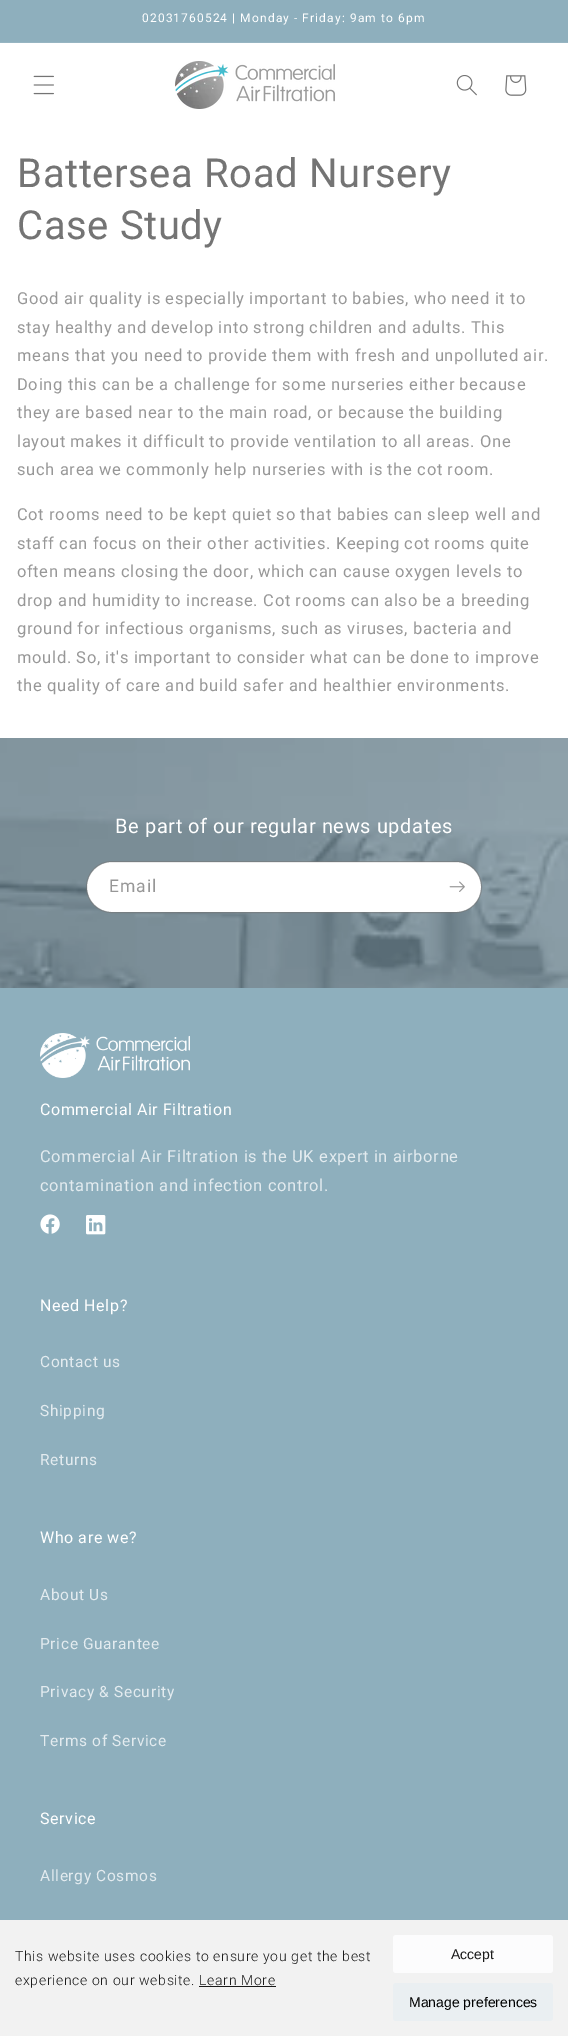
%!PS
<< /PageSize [568 2036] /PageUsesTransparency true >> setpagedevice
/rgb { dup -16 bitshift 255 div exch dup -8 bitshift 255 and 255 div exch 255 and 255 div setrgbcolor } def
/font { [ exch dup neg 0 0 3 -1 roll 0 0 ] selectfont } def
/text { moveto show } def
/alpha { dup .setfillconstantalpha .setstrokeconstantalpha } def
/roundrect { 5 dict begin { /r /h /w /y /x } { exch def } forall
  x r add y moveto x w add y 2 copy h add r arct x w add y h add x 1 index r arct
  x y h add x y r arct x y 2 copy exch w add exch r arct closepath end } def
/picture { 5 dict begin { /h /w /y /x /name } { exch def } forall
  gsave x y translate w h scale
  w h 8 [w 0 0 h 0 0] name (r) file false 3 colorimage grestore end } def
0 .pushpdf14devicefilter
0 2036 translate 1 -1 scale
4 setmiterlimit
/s1 { /LiberationSans-Regular 14 font 16#1A1A1A rgb } def
/s2 { /LiberationSans-Regular 14 font 16#000000 rgb } def
16#FFFFFF rgb
0 0 568 2036 rectfill
16#8EAFBD rgb
0 0 568 42 rectfill
16#97B5C2 rgb
0 42 568 1 rectfill
/Roboto-Regular 12 font
16#FFFFFF rgb
142 22 moveto 1.1 0 (02031760524 | Monday - Friday: 9am to 6pm) ashow
(pic1.raw) 33 75 21 20 picture
(pic2.raw) 175 61 160 48 picture
(pic3.raw) 456 75 21 21 picture
(pic4.raw) 505 75 22 21 picture
/Roboto-Regular 40 font
16#747474 rgb
17 187 moveto 0.6 0 (Battersea Road Nursery) ashow
17 239 moveto 0.6 0 (Case Study) ashow
/Roboto-Regular 16.5 font
16#979797 rgb
17 304 moveto 0.65 0 (Good air quality is especially important to babies, who need it to) ashow
17 333 moveto 0.65 0 (stay healthy and develop into strong children and adults. This) ashow
17 361 moveto 0.65 0 (means that you need to provide them with fresh and unpolluted air.) ashow
17 390 moveto 0.65 0 (Doing this can be a challenge for some nurseries either because) ashow
17 418 moveto 0.65 0 (they are based near to the main road, or because the building) ashow
17 447 moveto 0.65 0 (layout makes it difficult to provide ventilation to all areas. One) ashow
17 475 moveto 0.65 0 (such area we commonly help nurseries with is the cot room.) ashow
17 520 moveto 0.65 0 (Cot rooms need to be kept quiet so that babies can sleep well and) ashow
17 549 moveto 0.65 0 (staff can focus on their other activities. Keeping cot rooms quite) ashow
17 577 moveto 0.65 0 (often means closing the door, which can cause oxygen levels to) ashow
17 606 moveto 0.65 0 (drop and humidity to increase. Cot rooms can also be a breeding) ashow
17 634 moveto 0.65 0 (ground for infectious organisms, such as viruses, bacteria and) ashow
17 663 moveto 0.65 0 (mould. So, it's important to consider what can be done to improve) ashow
17 691 moveto 0.65 0 (the quality of care and build safer and healthier environments.) ashow
(pic5.raw) 0 738 568 250 picture
/Roboto-Regular 20 font
16#FFFFFF rgb
115 833 moveto 0.6 0 (Be part of our regular news updates) ashow
87 862 394 50 25 roundrect fill
0.55 alpha
16#747474 rgb
86.5 861.5 395 51 25.5 roundrect stroke
/Roboto-Regular 17.5 font
1 alpha
16#979797 rgb
109 892 moveto 1.1 0 (Email) ashow
(pic6.raw) 449 881 16 11 picture
16#8EAFBD rgb
0 988 568 932 rectfill
(pic7.raw) 40 1033 150 45 picture
/Roboto-Regular 16 font
16#FFFFFF rgb
40 1115 moveto 0.6 0 (Commercial Air Filtration) ashow
/Roboto-Regular 16.5 font
16#E3EBEF rgb
40 1162 moveto 0.65 0 (Commercial Air Filtration is the UK expert in airborne) ashow
40 1191 moveto 0.65 0 (contamination and infection control.) ashow
(pic8.raw) 40 1214 20 20 picture
(pic9.raw) 86 1215 20 20 picture
/Roboto-Regular 16 font
16#FFFFFF rgb
40 1311 moveto 0.6 0 (Need Help?) ashow
/Roboto-Regular 15.5 font
16#E3EBEF rgb
40 1367 moveto 0.65 0 (Contact us) ashow
40 1416 moveto 0.65 0 (Shipping) ashow
40 1465 moveto 0.65 0 (Returns) ashow
/Roboto-Regular 16 font
16#FFFFFF rgb
40 1543 moveto 0.6 0 (Who are we?) ashow
/Roboto-Regular 15.5 font
16#E3EBEF rgb
40 1600 moveto 0.65 0 (About Us) ashow
40 1649 moveto 0.65 0 (Price Guarantee) ashow
40 1697 moveto 0.65 0 (Privacy & Security) ashow
40 1746 moveto 0.65 0 (Terms of Service) ashow
/Roboto-Regular 16 font
16#FFFFFF rgb
40 1824 moveto 0.6 0 (Service) ashow
/Roboto-Regular 15.5 font
16#E3EBEF rgb
40 1881 moveto 0.65 0 (Allergy Cosmos) ashow
16#F2F2F2 rgb
0 1920 568 116 rectfill
/Roboto-Light 14 font
16#1A1A1A rgb
15 1961 moveto 0.65 0 (This website uses cookies to ensure you get the best) ashow
15 1985 moveto 0.65 0 (experience on our website. Learn More) ashow
199 1986 77 1 rectfill
16#FCFCFD rgb
393 1935 160 38 3 roundrect fill
s1
(Accept) 451 1959 text
16#EAEFF2 rgb
393 1983 160 38 3 roundrect fill
s2
(Manage preferences) 409 2007 text
.poppdf14devicefilter showpage
